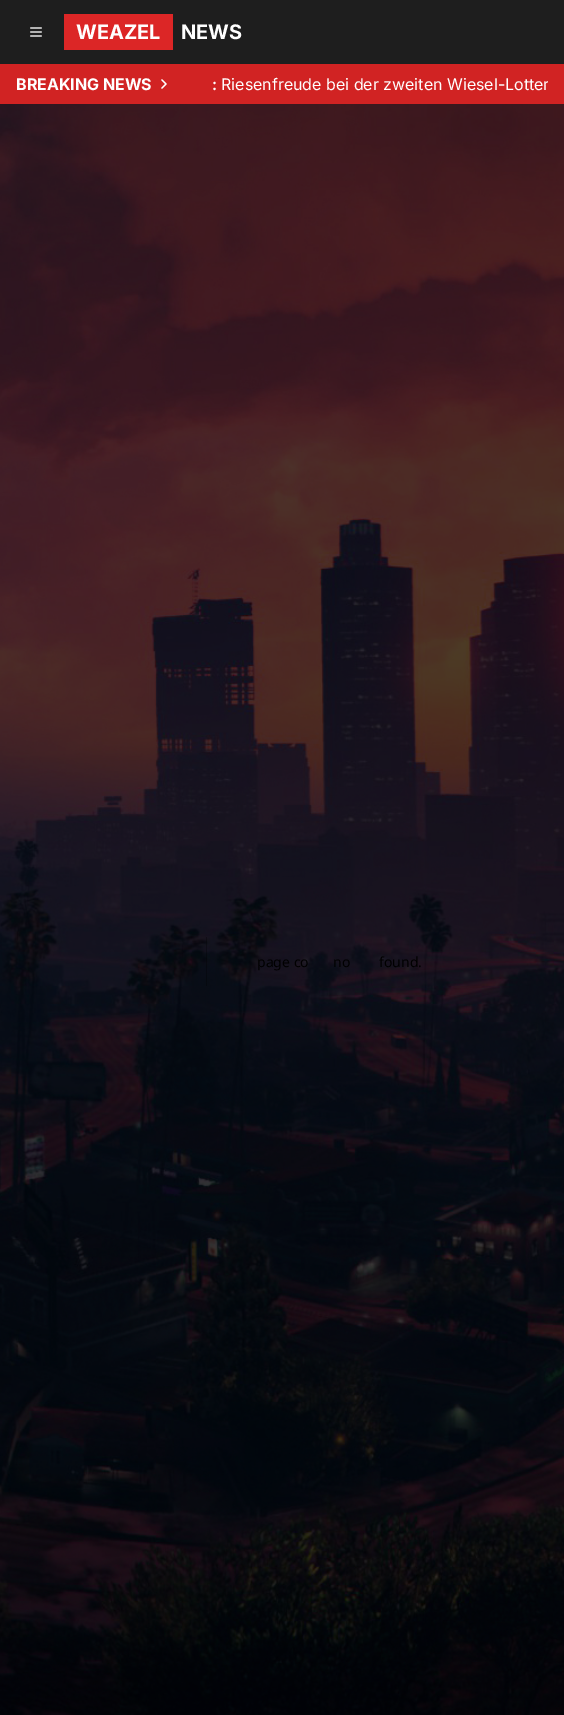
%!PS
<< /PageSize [564 1715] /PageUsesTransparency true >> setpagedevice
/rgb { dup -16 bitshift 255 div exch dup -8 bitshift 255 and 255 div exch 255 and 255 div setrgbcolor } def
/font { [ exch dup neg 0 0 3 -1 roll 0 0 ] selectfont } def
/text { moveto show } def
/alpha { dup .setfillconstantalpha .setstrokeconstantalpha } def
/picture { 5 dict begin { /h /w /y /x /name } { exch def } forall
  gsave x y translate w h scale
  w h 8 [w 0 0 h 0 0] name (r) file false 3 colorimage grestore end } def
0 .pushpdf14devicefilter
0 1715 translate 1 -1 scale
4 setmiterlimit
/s1 { /Inter-Bold 20 font 16#FFFFFF rgb } def
/s2 { /Inter-Bold 16 font 16#FFFFFF rgb } def
/s3 { /Inter-SemiBold 16 font 16#FFFFFF rgb } def
/s4 { /Inter-Regular 16 font 16#FFFFFF rgb } def
/s5 { /NotoSans-Regular 14 font 16#000000 rgb } def
16#FFFFFF rgb
0 0 564 1715 rectfill
16#1E1E1E rgb
0 0 564 64 rectfill
(pic1.raw) 30 27 12 10 picture
16#DC2626 rgb
64 14 109 36 rectfill
s1
(WEAZEL) 76 39 text
(NEWS) 181 39 text
16#D12323 rgb
0 64 564 40 rectfill
s2
(BREAKING NEWS) 16 90 text
1.3 setlinewidth
1 setlinecap
1 setlinejoin
162 88 moveto 166 84 lineto 162 80 lineto stroke
s3
(:) 212 90 text
gsave
188 72 360 24 rectclip
s4
(Riesenfreude bei der zweiten Wiesel-Lotter) 221 90 text
grestore
(pic2.raw) 0 104 564 1611 picture
0.3 alpha
16#000000 rgb
206 937 1 49 rectfill
1 alpha
s5
(page co) 257 967 text
(no) 333 967 text
(found.) 379 967 text
.poppdf14devicefilter showpage
